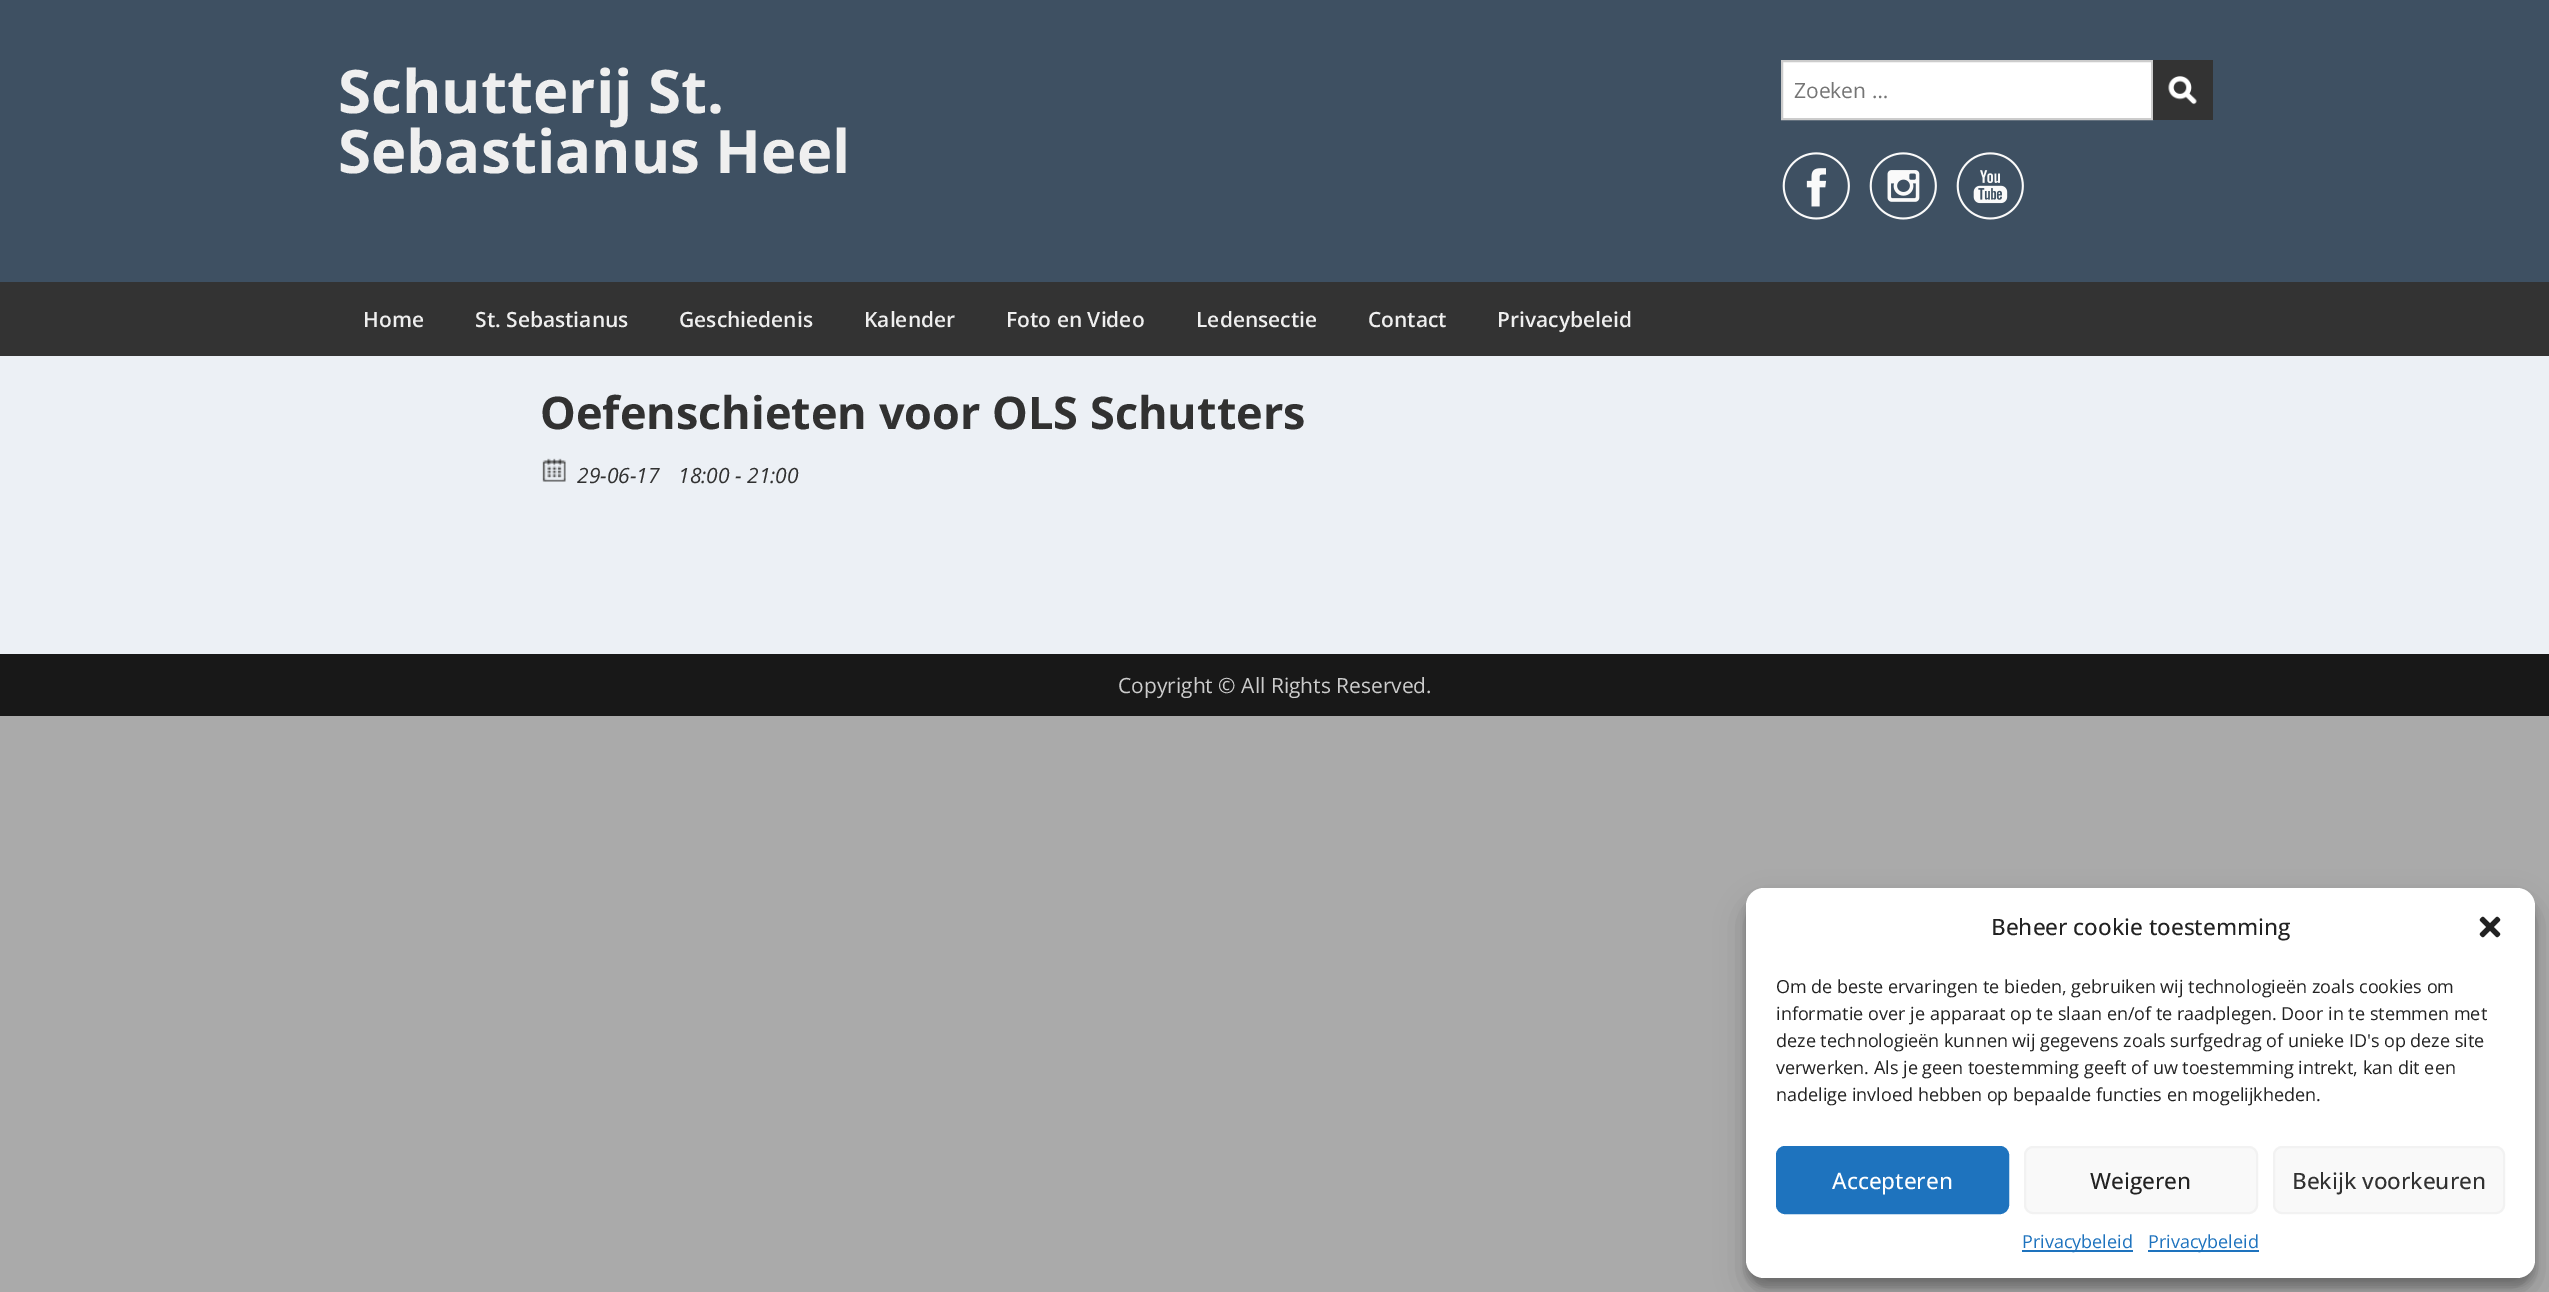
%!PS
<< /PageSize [2549 1292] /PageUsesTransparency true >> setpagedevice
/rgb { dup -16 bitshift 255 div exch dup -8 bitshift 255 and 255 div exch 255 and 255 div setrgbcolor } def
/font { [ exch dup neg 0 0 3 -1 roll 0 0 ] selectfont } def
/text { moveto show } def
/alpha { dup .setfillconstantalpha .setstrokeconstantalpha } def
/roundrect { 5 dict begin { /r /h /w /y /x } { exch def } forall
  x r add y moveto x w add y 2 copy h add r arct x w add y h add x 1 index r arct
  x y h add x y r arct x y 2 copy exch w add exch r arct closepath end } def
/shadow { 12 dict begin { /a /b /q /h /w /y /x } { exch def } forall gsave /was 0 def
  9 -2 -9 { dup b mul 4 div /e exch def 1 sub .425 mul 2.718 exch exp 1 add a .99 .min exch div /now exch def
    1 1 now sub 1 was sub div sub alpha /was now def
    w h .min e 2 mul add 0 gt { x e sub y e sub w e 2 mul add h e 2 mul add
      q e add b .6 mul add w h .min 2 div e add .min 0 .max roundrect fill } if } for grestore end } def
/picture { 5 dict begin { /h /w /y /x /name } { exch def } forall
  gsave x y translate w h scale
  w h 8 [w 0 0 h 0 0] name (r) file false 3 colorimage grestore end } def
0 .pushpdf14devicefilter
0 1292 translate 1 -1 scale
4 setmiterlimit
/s1 { /OpenSans-Bold 60 font 16#EFEFEF rgb } def
/s2 { /OpenSans-Regular 21 font 16#757575 rgb } def
/s3 { /OpenSans-SemiBold 21 font 16#EFEFEF rgb } def
/s4 { /OpenSans-Bold 45 font 16#313131 rgb } def
/s5 { /OpenSans-Italic 21 font 16#313131 rgb } def
/s6 { /OpenSans-Regular 21 font 16#CCCCCC rgb } def
/s7 { /OpenSans-Medium 22.5 font 16#222222 rgb } def
/s8 { /OpenSans-Regular 18 font 16#222222 rgb } def
/s9 { /OpenSans-Medium 22.5 font 16#FFFFFF rgb } def
/s10 { /OpenSans-Medium 22.5 font 16#313131 rgb } def
/s11 { /OpenSans-Regular 18 font 16#1E73BE rgb } def
16#AAAAAA rgb
0 0 2549 1292 rectfill
16#ECF0F5 rgb
0 356 2549 298 rectfill
16#3E5062 rgb
0 0 2549 282 rectfill
s1
(Schutterij St.) 338 113 text
(Sebastianus Heel) 338 173 text
16#FFFFFF rgb
1782 61 moveto 2152 61 lineto 2152 119 lineto 1782 119 lineto closepath gsave fill grestore
16#CCCCCC rgb
2 setlinewidth
stroke
s2
(Zoeken …) 1794 98 text
16#333333 rgb
2153 60 60 60 rectfill
(pic1.raw) 2168 76 29 29 picture
(pic2.raw) 1782 152 68 68 picture
(pic3.raw) 1869 152 68 68 picture
(pic4.raw) 1956 152 68 68 picture
0 282 2549 74 rectfill
s3
(Home) 363 327 text
(St. Sebastianus) 475 327 text
(Geschiedenis) 679 327 text
(Kalender) 864 327 text
(Foto en Video) 1006 327 text
(Ledensectie) 1196 327 text
(Contact) 1368 327 text
(Privacybeleid) 1497 327 text
s4
(Oefenschieten voor OLS Schutters) 540 429 text
(pic5.raw) 542 458 24 24 picture
s5
(29-06-17) 577 483 text
(18:00 - 21:00) 678 483 text
16#181818 rgb
0 654 2549 62 rectfill
s6
(Copyright © All Rights Reserved.) 1118 693 text
16#000000 rgb
1746 897 789 390 18 4.5 0.23 shadow
1746 903 789 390 18 15 0.19 shadow
16#FFFFFF rgb
1746 888 789 390 18 roundrect fill
s7
(Beheer cookie toestemming) 1991 935 text
(pic6.raw) 2479 916 22 22 picture
s8
(Om de beste ervaringen te bieden, gebruiken wij technologieën zoals cookies om) 1776 993 text
(informatie over je apparaat op te slaan en/of te raadplegen. Door in te stemmen met) 1776 1020 text
(deze technologieën kunnen wij gegevens zoals surfgedrag of unieke ID's op deze site) 1776 1047 text
(verwerken. Als je geen toestemming geeft of uw toestemming intrekt, kan dit een) 1776 1074 text
(nadelige invloed hebben op bepaalde functies en mogelijkheden.) 1776 1101 text
16#1E73BE rgb
1777 1147 231 66 8 roundrect gsave fill grestore
stroke
s9
(Accepteren) 1832 1189 text
16#F9F9F9 rgb
2025 1147 232 66 8 roundrect gsave fill grestore
16#F2F2F2 rgb
stroke
s7
(Weigeren) 2090 1189 text
16#F9F9F9 rgb
2274 1147 230 66 8 roundrect gsave fill grestore
16#F2F2F2 rgb
stroke
s10
(Bekijk voorkeuren) 2292 1189 text
16#1E73BE rgb
2022 1250 111 2 rectfill
s11
(Privacybeleid) 2022 1248 text
2148 1250 111 2 rectfill
(Privacybeleid) 2148 1248 text
.poppdf14devicefilter showpage
